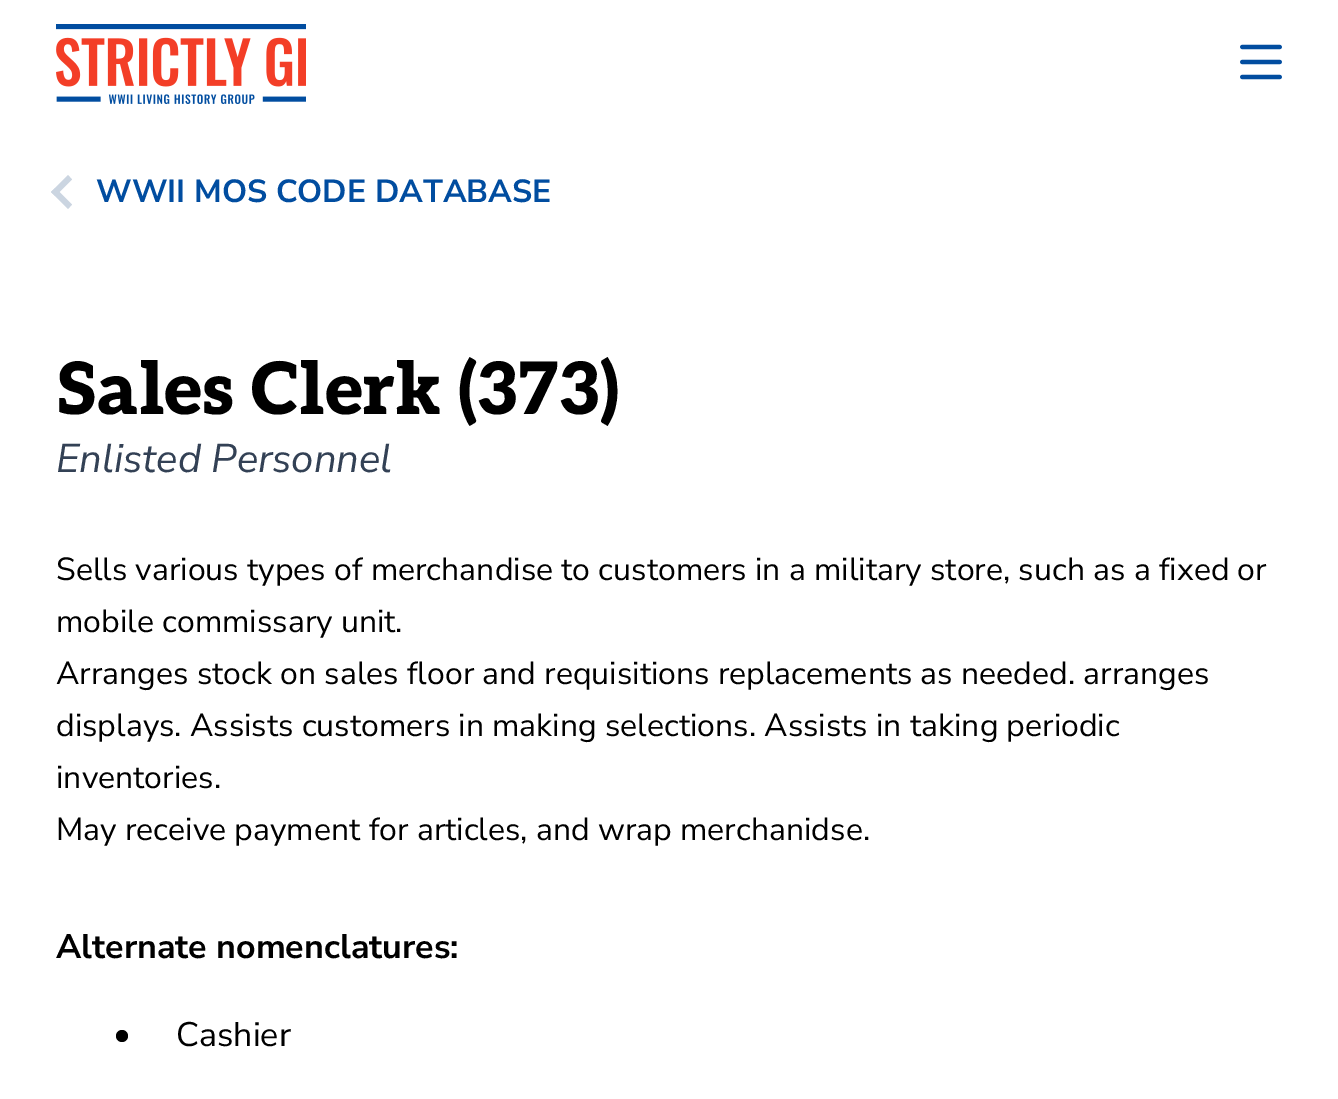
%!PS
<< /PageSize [1338 1099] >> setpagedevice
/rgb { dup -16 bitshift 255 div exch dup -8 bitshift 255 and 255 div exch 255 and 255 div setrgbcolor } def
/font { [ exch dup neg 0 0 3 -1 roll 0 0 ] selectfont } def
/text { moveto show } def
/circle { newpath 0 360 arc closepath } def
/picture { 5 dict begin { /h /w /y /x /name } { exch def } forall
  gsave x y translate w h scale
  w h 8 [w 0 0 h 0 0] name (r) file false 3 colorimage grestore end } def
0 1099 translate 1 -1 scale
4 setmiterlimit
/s1 { /NunitoSans-Bold 32 font 16#014DA0 rgb } def
/s2 { /Aleo-Black 72 font 16#000000 rgb } def
/s3 { /NunitoSans-Italic 40 font 16#334155 rgb } def
/s4 { /NunitoSans-Regular 32 font 16#000000 rgb } def
/s5 { /NunitoSans-Bold 34 font 16#000000 rgb } def
/s6 { /NunitoSans-Regular 34 font 16#000000 rgb } def
16#FFFFFF rgb
0 0 1338 1099 rectfill
(pic1.raw) 56 24 250 80 picture
(pic2.raw) 1240 44 42 36 picture
16#CBD5E1 rgb
68 209 moveto 51 192 lineto 55.5 188 lineto 72 204.5 lineto closepath fill
55.5 196 moveto 51 192 lineto 68 175 lineto 72 179.5 lineto closepath fill
s1
(WWII MOS CODE DATABASE) 96 202 text
s2
(Sales Clerk \(373\)) 56 414 text
s3
(Enlisted Personnel) 56 472 text
s4
(Sells various types of merchandise to customers in a military store, such as a fixed or) 56 580 text
(mobile commissary unit.) 56 632 text
(Arranges stock on sales floor and requisitions replacements as needed. arranges) 56 684 text
(displays. Assists customers in making selections. Assists in taking periodic) 56 736 text
(inventories.) 56 788 text
(May receive payment for articles, and wrap merchanidse.) 56 840 text
s5
(Alternate nomenclatures:) 56 958 text
122 1036 6 circle fill
s6
(Cashier) 176 1046 text
showpage
